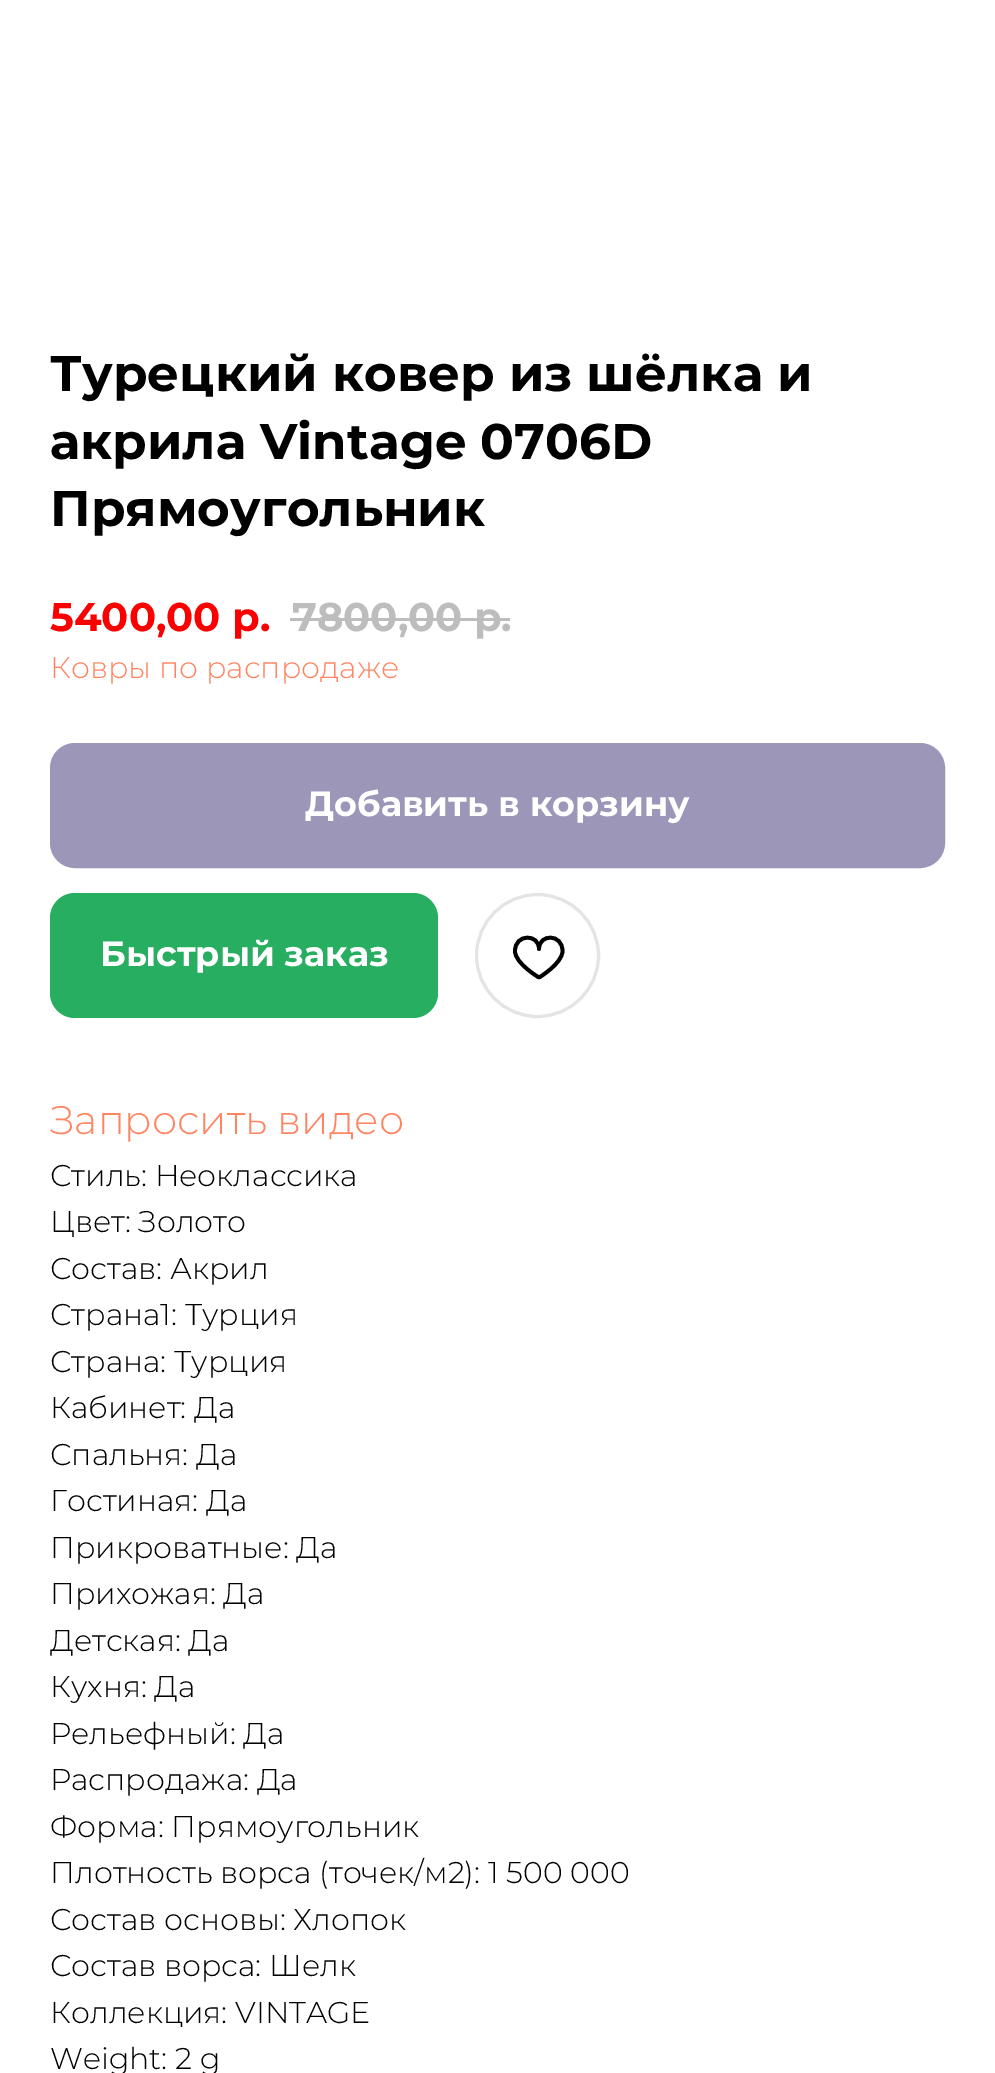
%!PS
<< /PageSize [995 2073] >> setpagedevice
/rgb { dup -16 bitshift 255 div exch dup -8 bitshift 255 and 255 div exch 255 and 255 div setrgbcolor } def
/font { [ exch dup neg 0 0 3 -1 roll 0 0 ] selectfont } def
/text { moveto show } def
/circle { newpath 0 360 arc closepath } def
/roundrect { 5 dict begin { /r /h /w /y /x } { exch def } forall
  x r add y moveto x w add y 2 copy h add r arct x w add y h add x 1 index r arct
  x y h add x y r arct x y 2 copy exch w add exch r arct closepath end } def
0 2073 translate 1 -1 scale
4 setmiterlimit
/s1 { /Montserrat-Bold 50 font 16#000000 rgb } def
/s2 { /Montserrat-Bold 40 font 16#FB0000 rgb } def
/s3 { /Montserrat-Bold 40 font 16#BDBDBD rgb } def
/s4 { /Montserrat-Light 30 font 16#FF8562 rgb } def
/s5 { /Montserrat-Bold 35 font 16#FFFFFF rgb } def
/s6 { /Montserrat-Light 40 font 16#FF8562 rgb } def
/s7 { /Montserrat-Light 30 font 16#000000 rgb } def
16#FFFFFF rgb
0 0 995 2073 rectfill
s1
(Турецкий ковер из шёлка и) 50 391 text
(акрила Vintage 0706D) 50 459 text
(Прямоугольник) 50 526 text
s2
(5400,00 р.) 50 631 text
s3
(7800,00 р.) 292 631 text
290 618 220 3 rectfill
s4
(Ковры по распродаже) 50 678 text
16#9C97B9 rgb
51.5 744.5 892 122 23.5 roundrect gsave fill grestore
3 setlinewidth
stroke
s5
(Добавить в корзину) 305 816 text
16#27AE60 rgb
50 893 388 125 25 roundrect fill
s5
(Быстрый заказ) 100 966 text
16#E4E4E4 rgb
537.5 955.5 61 circle stroke
16#000000 rgb
3.8 setlinewidth
1 setlinejoin
562.5 951 moveto 562.5 963.5 539 977.5 539 977.5 curveto 539 977.5 515 963.5 515 951 curveto 515 933.5 539 933.5 539 949 curveto 539 933.5 562.5 933.5 562.5 951 curveto closepath stroke
s6
(Запросить видео) 50 1134 text
s7
(Стиль: Неоклассика) 50 1186 text
(Цвет: Золото) 50 1232 text
(Состав: Акрил) 50 1279 text
(Страна1: Турция) 50 1325 text
(Страна: Турция) 50 1372 text
(Кабинет: Да) 50 1418 text
(Спальня: Да) 50 1465 text
(Гостиная: Да) 50 1511 text
(Прикроватные: Да) 50 1558 text
(Прихожая: Да) 50 1604 text
(Детская: Да) 50 1651 text
(Кухня: Да) 50 1697 text
(Рельефный: Да) 50 1744 text
(Распродажа: Да) 50 1790 text
(Форма: Прямоугольник) 50 1837 text
(Плотность ворса \(точек/м2\): 1 500 000) 50 1883 text
(Состав основы: Хлопок) 50 1930 text
(Состав ворса: Шелк) 50 1976 text
(Коллекция: VINTAGE) 50 2023 text
(Weight: 2 g) 50 2069 text
showpage
